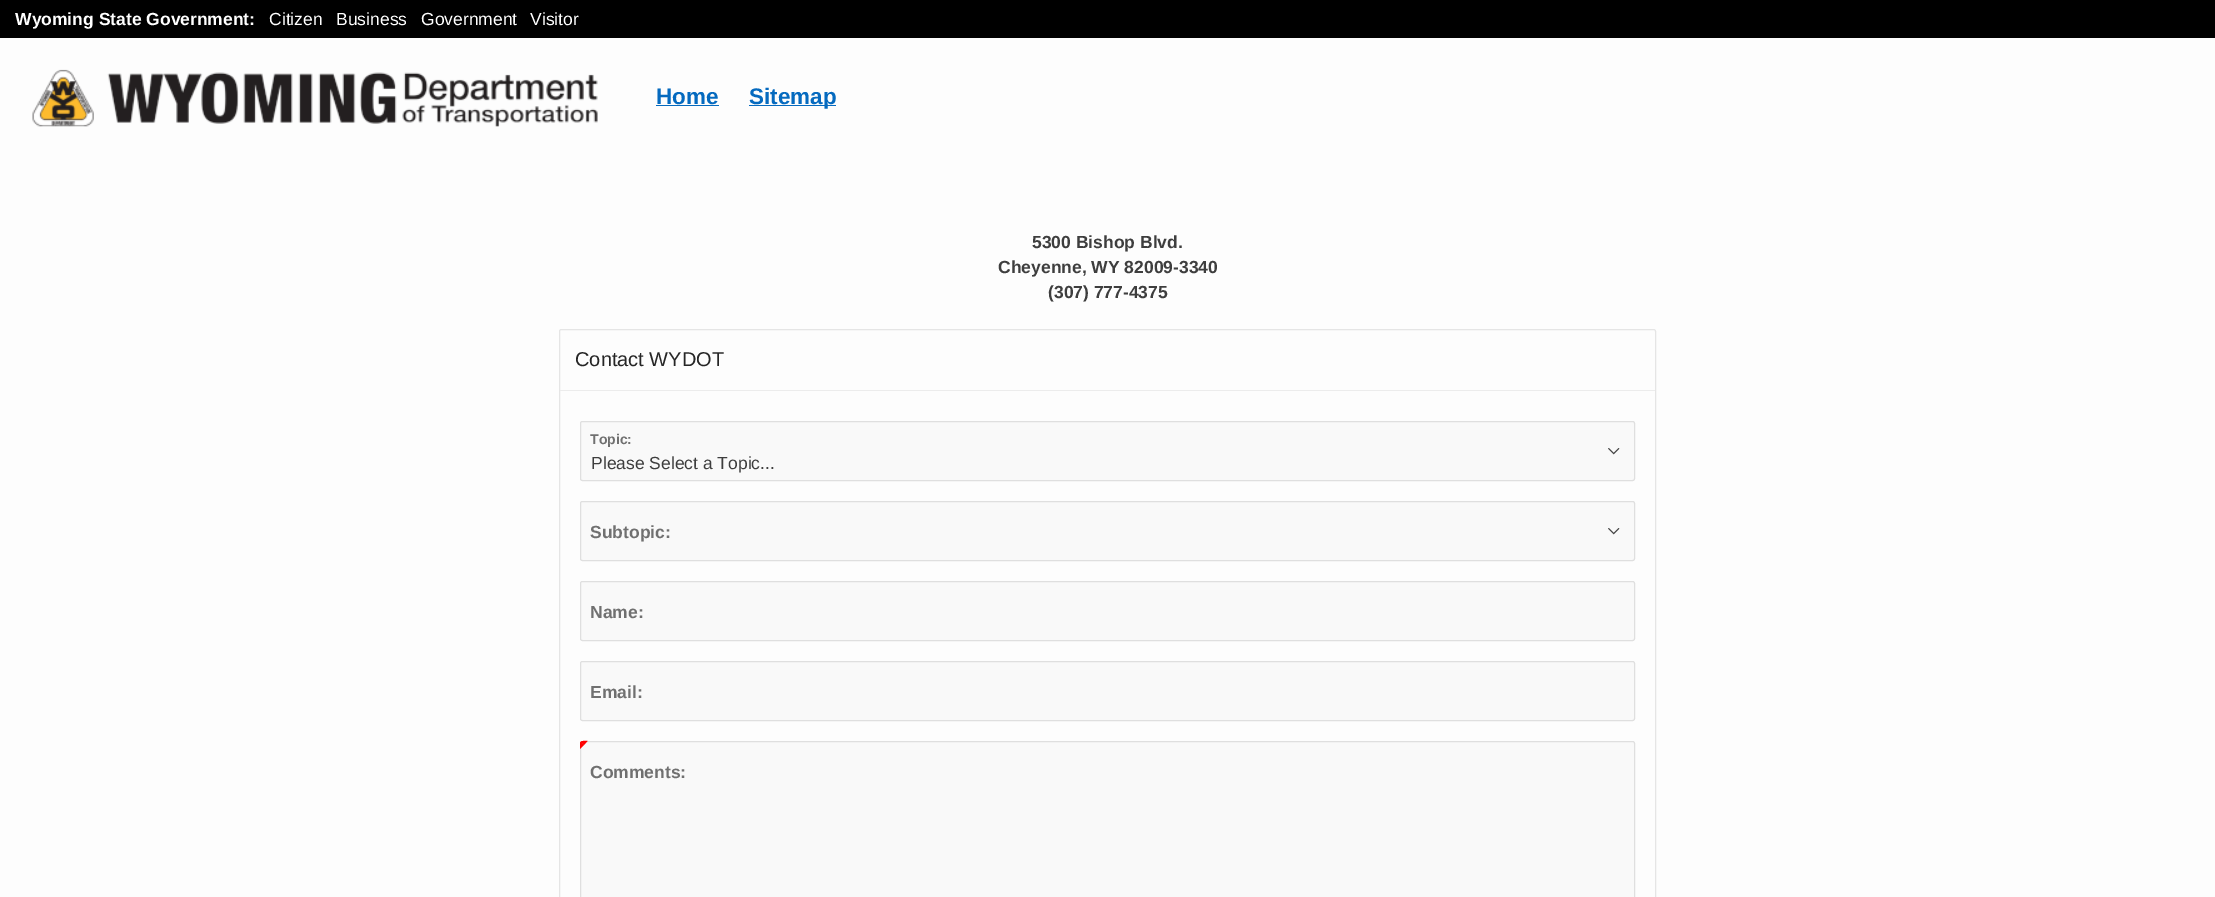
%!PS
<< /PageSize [2215 897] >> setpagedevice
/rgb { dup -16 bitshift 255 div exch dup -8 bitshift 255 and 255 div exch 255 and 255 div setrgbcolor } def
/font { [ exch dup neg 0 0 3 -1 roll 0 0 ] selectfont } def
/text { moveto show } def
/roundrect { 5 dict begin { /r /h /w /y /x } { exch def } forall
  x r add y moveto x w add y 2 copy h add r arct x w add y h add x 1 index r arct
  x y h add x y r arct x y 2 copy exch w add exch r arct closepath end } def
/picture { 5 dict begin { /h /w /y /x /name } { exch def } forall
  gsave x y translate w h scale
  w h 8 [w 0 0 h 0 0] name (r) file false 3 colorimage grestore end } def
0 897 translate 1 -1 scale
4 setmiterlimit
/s1 { /LiberationSans-Bold 17.5 font 16#FFFFFF rgb } def
/s2 { /LiberationSans-Regular 17.5 font 16#FFFFFF rgb } def
/s3 { /LiberationSans-Bold 22.5 font 16#056ABF rgb } def
/s4 { /LiberationSans-Bold 17.5 font 16#3E3E3E rgb } def
/s5 { /LiberationSans-Regular 20 font 16#262626 rgb } def
/s6 { /LiberationSans-Bold 14 font 16#707070 rgb } def
/s7 { /LiberationSans-Regular 17.5 font 16#3E3E3E rgb } def
/s8 { /LiberationSans-Bold 17.5 font 16#707070 rgb } def
16#FDFDFD rgb
0 0 2215 897 rectfill
16#000000 rgb
0 0 2215 38 rectfill
s1
(Wyoming State Government:) 15 25 text
s2
(Citizen) 269 25 text
(Business) 336 25 text
(Government) 421 25 text
(Visitor) 530 25 text
(pic1.raw) 32 69 566 58 picture
s3
(Home) 656 104 text
656 105 63 1 rectfill
749 105 87 1 rectfill
(Sitemap) 749 104 text
s4
(5300 Bishop Blvd.) 1032 248 text
(Cheyenne, WY 82009-3340) 998 273 text
(\(307\) 777-4375) 1048 298 text
16#E5E5E5 rgb
559.5 329.5 1096 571 2 roundrect stroke
16#ECECEC rgb
560 390 1095 1 rectfill
s5
(Contact WYDOT) 575 366 text
16#F9F9F9 rgb
580 421 1055 60 2.5 roundrect fill
(pic2.raw) 1608 448 12 7 picture
16#DFDFDF rgb
580.5 421.5 1054 59 2 roundrect stroke
s6
(Topic:) 590 444 text
s7
(Please Select a Topic...) 591 469 text
16#F9F9F9 rgb
580 501 1055 60 2.5 roundrect fill
(pic2.raw) 1608 528 12 7 picture
16#DFDFDF rgb
580.5 501.5 1054 59 2 roundrect stroke
s8
(Subtopic:) 590 538 text
16#F9F9F9 rgb
580.5 581.5 1054 59 2 roundrect gsave fill grestore
16#DFDFDF rgb
stroke
s8
(Name:) 590 618 text
16#F9F9F9 rgb
580.5 661.5 1054 59 2 roundrect gsave fill grestore
16#DFDFDF rgb
stroke
s8
(Email:) 590 698 text
16#F9F9F9 rgb
580.5 741.5 1054 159 2 roundrect gsave fill grestore
16#DFDFDF rgb
stroke
16#FF0000 rgb
580.5 742 moveto 581.5 740.5 586 741 587.5 741 curveto 584 745 lineto closepath fill
gsave
580 411 1055 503 rectclip
580 749 moveto 580 746.5 579.5 743.5 580.5 742 curveto 584 745 lineto closepath fill
grestore
s8
(Comments:) 590 778 text
showpage
